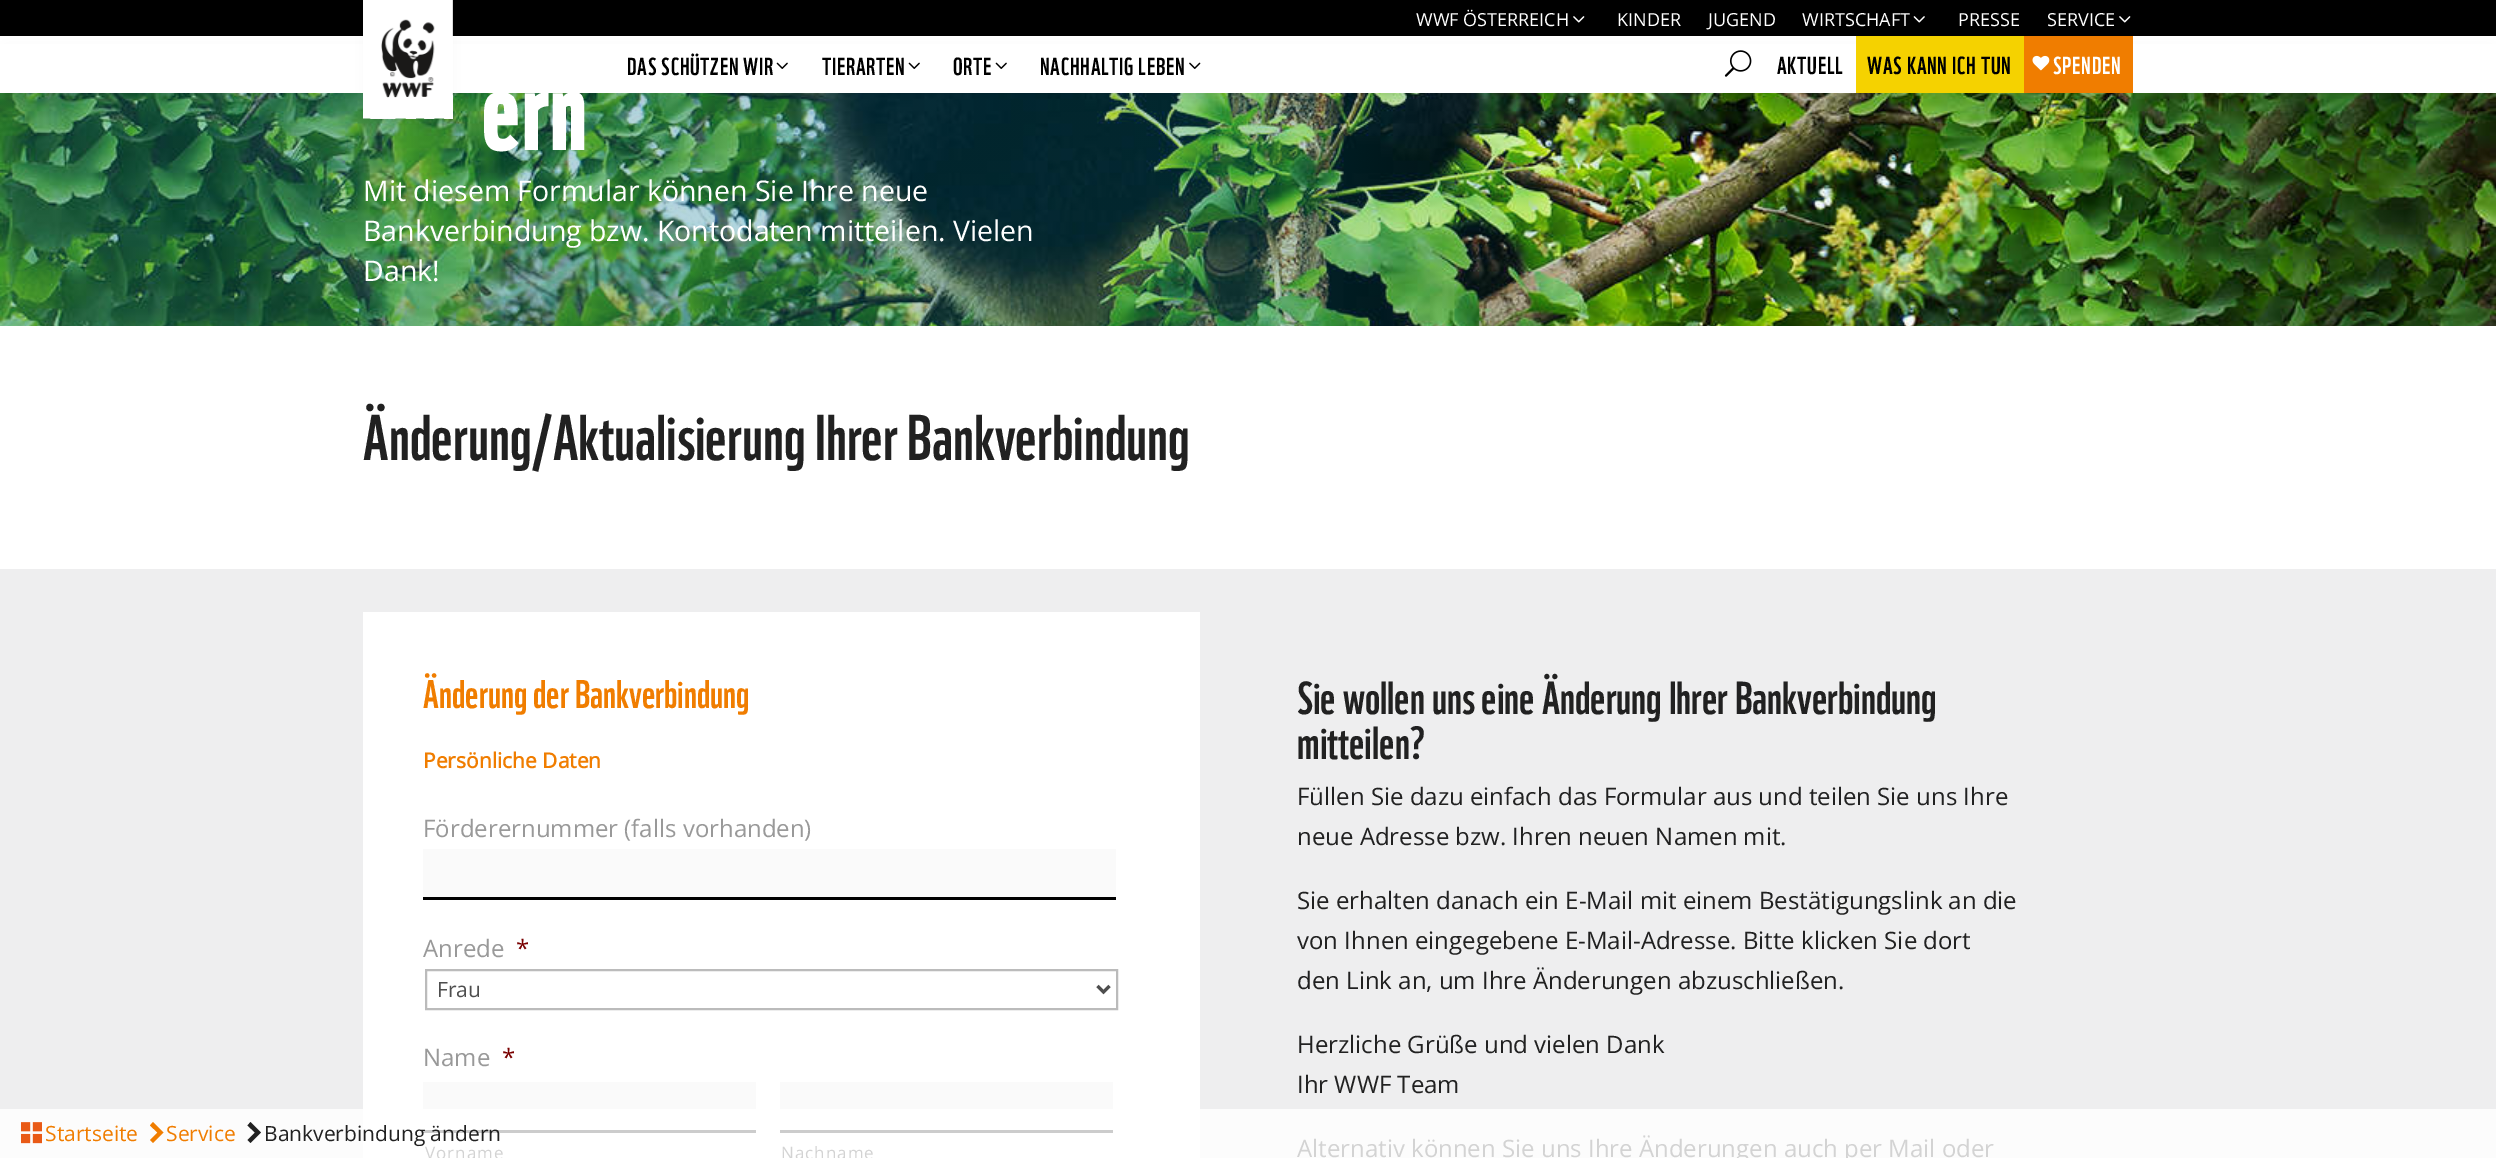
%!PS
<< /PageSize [2496 1158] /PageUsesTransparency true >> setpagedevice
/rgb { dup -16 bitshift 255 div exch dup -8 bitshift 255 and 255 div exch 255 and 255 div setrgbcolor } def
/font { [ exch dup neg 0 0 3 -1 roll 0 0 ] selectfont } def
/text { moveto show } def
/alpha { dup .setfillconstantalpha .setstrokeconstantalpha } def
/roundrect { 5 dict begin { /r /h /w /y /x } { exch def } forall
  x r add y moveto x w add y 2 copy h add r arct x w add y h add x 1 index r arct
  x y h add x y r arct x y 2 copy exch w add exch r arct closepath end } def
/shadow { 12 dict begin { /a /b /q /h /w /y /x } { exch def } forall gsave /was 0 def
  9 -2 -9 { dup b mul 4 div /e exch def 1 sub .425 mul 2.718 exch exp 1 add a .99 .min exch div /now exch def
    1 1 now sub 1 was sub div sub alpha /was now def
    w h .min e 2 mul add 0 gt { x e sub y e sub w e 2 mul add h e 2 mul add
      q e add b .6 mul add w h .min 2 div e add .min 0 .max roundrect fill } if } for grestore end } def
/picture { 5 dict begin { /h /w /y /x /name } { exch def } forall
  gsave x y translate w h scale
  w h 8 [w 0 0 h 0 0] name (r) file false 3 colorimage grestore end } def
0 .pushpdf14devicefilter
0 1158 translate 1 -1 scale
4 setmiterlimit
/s1 { /OpenSans-Regular 21 font 16#F07D00 rgb } def
/s2 { /OpenSans-Regular 21 font 16#212121 rgb } def
/s3 { /OpenSans-Regular 18 font 16#FFFFFF rgb } def
/s4 { /OpenSans-Regular 28.5 font 16#FFFFFF rgb } def
/s5 { /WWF-Regular 63 font 16#212121 rgb } def
/s6 { /WWF-Regular 39 font 16#F07D00 rgb } def
/s7 { /OpenSans-Bold 21 font 16#F07D00 rgb } def
/s8 { /OpenSans-Regular 24 font 16#999999 rgb } def
/s9 { /OpenSans-Regular 24 font 16#790000 rgb } def
/s10 { /OpenSans-Regular 21 font 16#4E4E4E rgb } def
/s11 { /WWF-Regular 45 font 16#212121 rgb } def
/s12 { /OpenSans-Regular 24 font 16#212121 rgb } def
/s13 { /OpenSans-Regular 24 font 16#D3D3D3 rgb } def
16#FFFFFF rgb
0 0 2496 1158 rectfill
16#FCFCFC rgb
0 1109 2496 49 rectfill
(pic1.raw) 21 1122 21 22 picture
s1
(Startseite) 45 1141 text
(Service) 166 1141 text
153 1122 moveto 163.5 1132.5 lineto 153 1143 lineto 150 1140 lineto 157.5 1132.5 lineto 150 1125.5 lineto closepath fill
16#EEEEEF rgb
0 569 2496 540 rectfill
16#FFFFFF rgb
363 612 837 546 rectfill
16#CCCCCC rgb
423 1130 333 3 rectfill
s2
(Bankverbindung ändern) 264 1141 text
250.5 1122 moveto 261 1132.5 lineto 250.5 1143 lineto 247.5 1140 lineto 255 1132.5 lineto 247.5 1125.5 lineto closepath fill
(pic9.raw) 0 93 2496 233 picture
16#000000 rgb
9 54 2478 39 0 7.5 0.1 shadow
0 0 2496 36 rectfill
16#FFFFFF rgb
0 44 2496 49 rectfill
16#000000 rgb
372 18 72 101 0 7.5 0.1 shadow
(pic2.raw) 363 0 90 119 picture
s3
(WWF ÖSTERREICH) 1416 26 text
(pic3.raw) 1573 16 12 7 picture
(KINDER) 1617 26 text
(JUGEND) 1708 26 text
(WIRTSCHAFT) 1802 26 text
(pic4.raw) 1913 16 12 7 picture
(PRESSE) 1958 26 text
(SERVICE) 2047 26 text
(pic3.raw) 2119 16 12 7 picture
/WWF-Regular 24 font
16#000000 rgb
627 75 moveto 0.75 0 (DAS SCHÜTZEN WIR) ashow
(pic5.raw) 776 62 12 7 picture
822 75 moveto 0.75 0 (TIERARTEN) ashow
(pic5.raw) 908 62 12 7 picture
953 75 moveto 0.75 0 (ORTE) ashow
(pic5.raw) 995 62 12 7 picture
1040 75 moveto 0.75 0 (NACHHALTIG LEBEN) ashow
(pic6.raw) 1189 62 12 7 picture
(pic7.raw) 1724 50 28 27 picture
1777 74 moveto 0.75 0 (AKTUELL) ashow
16#F5D200 rgb
1856 36 168 57 rectfill
16#000000 rgb
1867 74 moveto 0.75 0 (WAS KANN ICH TUN) ashow
16#F07D00 rgb
2024 36 109 57 rectfill
(pic8.raw) 2032 55 18 16 picture
16#FFFFFF rgb
2053 74 moveto 0.75 0 (SPENDEN) ashow
/WWF-Bold 108 font
481 150 moveto 3 0 (ern) ashow
s4
(Mit diesem Formular können Sie Ihre neue) 363 201 text
(Bankverbindung bzw. Kontodaten mitteilen. Vielen) 363 241 text
(Dank!) 363 281 text
s5
(Änderung/Aktualisierung Ihrer Bankverbindung) 363 460 text
s6
(Änderung der Bankverbindung) 423 708 text
s7
(Persönliche Daten) 423 768 text
s8
(Förderernummer \(falls vorhanden\)) 423 837 text
16#FAFAFA rgb
423 849 693 48 rectfill
16#000000 rgb
423 897 693 3 rectfill
s8
(Anrede) 423 957 text
s9
(*) 516 957 text
16#BBBBBB rgb
2 setlinewidth
426 970 691 39 rectstroke
16#4E4E4E rgb
3 setlinewidth
1097.5 986 moveto 1103.5 992 lineto 1109.5 986 lineto stroke
s10
(Frau) 437 997 text
s8
(Name) 423 1066 text
s9
(*) 502 1066 text
16#FAFAFA rgb
423 1082 333 27 rectfill
/OpenSans-Regular 17 font
16#D3D3D3 rgb
425 1159 moveto 1 0 (Vorname) ashow
16#FAFAFA rgb
780 1082 333 27 rectfill
16#CCCCCC rgb
780 1130 333 3 rectfill
16#D3D3D3 rgb
781 1159 moveto 1 0 (Nachname) ashow
s11
(Sie wollen uns eine Änderung Ihrer Bankverbindung) 1297 714 text
(mitteilen?) 1297 759 text
s12
(Füllen Sie dazu einfach das Formular aus und teilen Sie uns Ihre) 1297 805 text
(neue Adresse bzw. Ihren neuen Namen mit.) 1297 845 text
(Sie erhalten danach ein E-Mail mit einem Bestätigungslink an die) 1297 909 text
(von Ihnen eingegebene E-Mail-Adresse. Bitte klicken Sie dort) 1297 949 text
(den Link an, um Ihre Änderungen abzuschließen.) 1297 989 text
(Herzliche Grüße und vielen Dank) 1297 1053 text
(Ihr WWF Team) 1297 1093 text
s13
(Alternativ können Sie uns Ihre Änderungen auch per Mail oder) 1297 1157 text
.poppdf14devicefilter showpage
